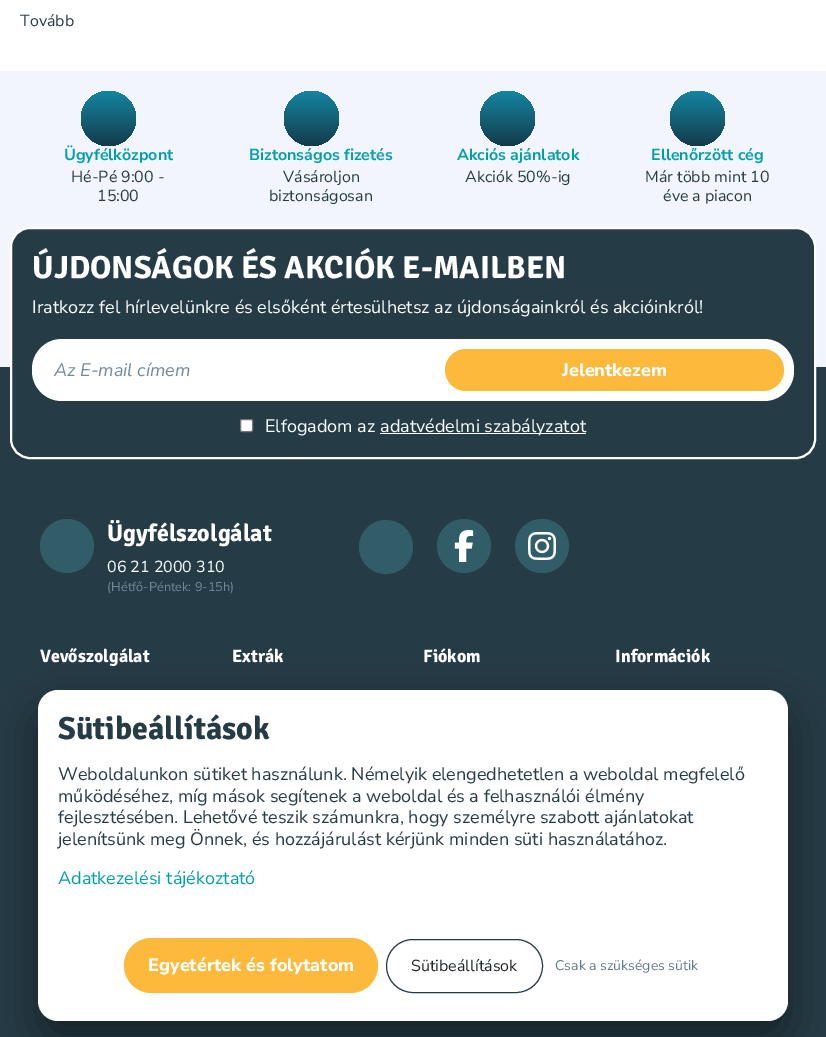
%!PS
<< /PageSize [826 1037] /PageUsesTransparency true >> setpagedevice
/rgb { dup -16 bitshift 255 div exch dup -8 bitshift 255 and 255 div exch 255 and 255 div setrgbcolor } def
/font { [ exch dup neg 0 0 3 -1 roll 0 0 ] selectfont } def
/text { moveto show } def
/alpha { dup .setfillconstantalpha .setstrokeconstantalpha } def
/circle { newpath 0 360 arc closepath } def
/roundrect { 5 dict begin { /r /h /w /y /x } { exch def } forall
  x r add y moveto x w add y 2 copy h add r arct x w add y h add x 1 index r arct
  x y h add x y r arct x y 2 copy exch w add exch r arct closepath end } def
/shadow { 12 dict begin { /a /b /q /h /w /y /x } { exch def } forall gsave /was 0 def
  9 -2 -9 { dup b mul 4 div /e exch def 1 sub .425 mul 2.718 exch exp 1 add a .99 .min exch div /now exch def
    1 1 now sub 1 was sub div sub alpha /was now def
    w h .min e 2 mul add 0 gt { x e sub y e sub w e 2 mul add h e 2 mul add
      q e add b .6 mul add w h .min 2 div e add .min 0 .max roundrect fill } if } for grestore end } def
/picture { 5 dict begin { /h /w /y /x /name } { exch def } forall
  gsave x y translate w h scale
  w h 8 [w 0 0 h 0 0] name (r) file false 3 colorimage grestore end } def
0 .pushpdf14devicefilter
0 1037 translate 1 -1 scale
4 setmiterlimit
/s1 { /NunitoSans-Regular 16 font 16#253B45 rgb } def
/s2 { /NunitoSans-Bold 16 font 16#019EAC rgb } def
/s3 { /Signika-Bold 32 font 16#FFFFFF rgb } def
/s4 { /NunitoSans-Regular 18 font 16#FFFFFF rgb } def
/s5 { /NunitoSans-ExtraLightItalic 18 font 16#71899B rgb } def
/s6 { /NunitoSans-ExtraBold 18 font 16#FFFFFF rgb } def
/s7 { /Signika-Bold 24 font 16#FFFFFF rgb } def
/s8 { /NunitoSans-Regular 16 font 16#FFFFFF rgb } def
/s9 { /NunitoSans-Regular 12.75 font 16#71899B rgb } def
/s10 { /Signika-Bold 18 font 16#FFFFFF rgb } def
/s11 { /Signika-Bold 32 font 16#253B45 rgb } def
/s12 { /NunitoSans-Regular 18 font 16#253B45 rgb } def
/s13 { /NunitoSans-Regular 18 font 16#019EAC rgb } def
/s14 { /NunitoSans-Regular 16 font 16#212529 rgb } def
/s15 { /NunitoSans-Regular 14 font 16#607D8B rgb } def
16#FFFFFF rgb
0 0 826 1037 rectfill
s1
(Tovább) 20 26 text
16#F2F5FD rgb
0 71 826 296 rectfill
gsave 108.5 118.5 27.5 circle clip newpath
<< /ShadingType 2 /ColorSpace /DeviceRGB /Coords [109 91 109 146] /Extend [true true] /Function << /FunctionType 2 /Domain [0 1] /C0 [0.075 0.525 0.635] /C1 [0.075 0.231 0.294] /N 1 >> >> shfill grestore
s2
(Ügyfélközpont) 64 160 text
s1
(Hé-Pé 9:00 -) 71 182 text
(15:00) 97 201 text
gsave 311.5 118.5 27.5 circle clip newpath
<< /ShadingType 2 /ColorSpace /DeviceRGB /Coords [312 91 312 146] /Extend [true true] /Function << /FunctionType 2 /Domain [0 1] /C0 [0.075 0.525 0.635] /C1 [0.075 0.231 0.294] /N 1 >> >> shfill grestore
s2
(Biztonságos fizetés) 249 160 text
s1
(Vásároljon) 283 182 text
(biztonságosan) 269 201 text
gsave 507.5 118.5 27.5 circle clip newpath
<< /ShadingType 2 /ColorSpace /DeviceRGB /Coords [508 91 508 146] /Extend [true true] /Function << /FunctionType 2 /Domain [0 1] /C0 [0.075 0.525 0.635] /C1 [0.075 0.231 0.294] /N 1 >> >> shfill grestore
s2
(Akciós ajánlatok) 457 160 text
s1
(Akciók 50%-ig) 465 182 text
gsave 697.5 118.5 27.5 circle clip newpath
<< /ShadingType 2 /ColorSpace /DeviceRGB /Coords [698 91 698 146] /Extend [true true] /Function << /FunctionType 2 /Domain [0 1] /C0 [0.075 0.525 0.635] /C1 [0.075 0.231 0.294] /N 1 >> >> shfill grestore
s2
(Ellenőrzött cég) 651 160 text
s1
(Már több mint 10) 645 182 text
(éve a piacon) 663 201 text
0 367 826 670 rectfill
11 228 804 230 19 roundrect gsave fill grestore
16#FFFFFF rgb
2 setlinewidth
stroke
s3
(ÚJDONSÁGOK ÉS AKCIÓK E-MAILBEN) 32 278 text
s4
(Iratkozz fel hírlevelünkre és elsőként értesülhetsz az újdonságainkról és akcióinkról!) 32 313 text
32 339 762 62 30 roundrect fill
s5
(Az E-mail címem) 54 376 text
16#FCB93C rgb
445 349 339 42 21 roundrect fill
s6
(Jelentkezem) 562 376 text
240.5 419.5 12 12 1.5 roundrect gsave fill grestore
16#767676 rgb
1 setlinewidth
stroke
s4
(Elfogadom az) 265 432 text
380 433 206 1 rectfill
(adatvédelmi szabályzatot) 380 432 text
16#305D67 rgb
67 546 27 circle fill
s7
(Ügyfélszolgálat) 107 541 text
s8
(06 21 2000 310) 107 572 text
s9
(\(Hétfő-Péntek: 9-15h\)) 107 591 text
16#305D67 rgb
386 547 27 circle fill
464 546 27 circle fill
(pic1.raw) 454 530 20 32 picture
542 546 27 circle fill
(pic2.raw) 528 532 28 28 picture
s10
(Vevőszolgálat) 40 662 text
(Extrák) 232 662 text
(Fiókom) 423 662 text
(Információk) 615 662 text
16#000000 rgb
38 710 750 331 20 20 0.4 shadow
16#FFFFFF rgb
38 690 750 331 20 roundrect fill
s11
(Sütibeállítások) 58 739 text
s12
(Weboldalunkon sütiket használunk. Némelyik elengedhetetlen a weboldal megfelelő) 58 780 text
(működéséhez, míg mások segítenek a weboldal és a felhasználói élmény) 58 802 text
(fejlesztésében. Lehetővé teszik számunkra, hogy személyre szabott ajánlatokat) 58 823 text
(jelenítsünk meg Önnek, és hozzájárulást kérjünk minden süti használatához.) 58 845 text
s13
(Adatkezelési tájékoztató) 58 884 text
16#FCB93C rgb
124 938 254 55 27.5 roundrect fill
s6
(Egyetértek és folytatom) 148 971 text
16#253B45 rgb
386.5 939.5 156 53 26.5 roundrect stroke
s14
(Sütibeállítások) 411 971 text
s15
(Csak a szükséges sütik) 555 970 text
.poppdf14devicefilter showpage
